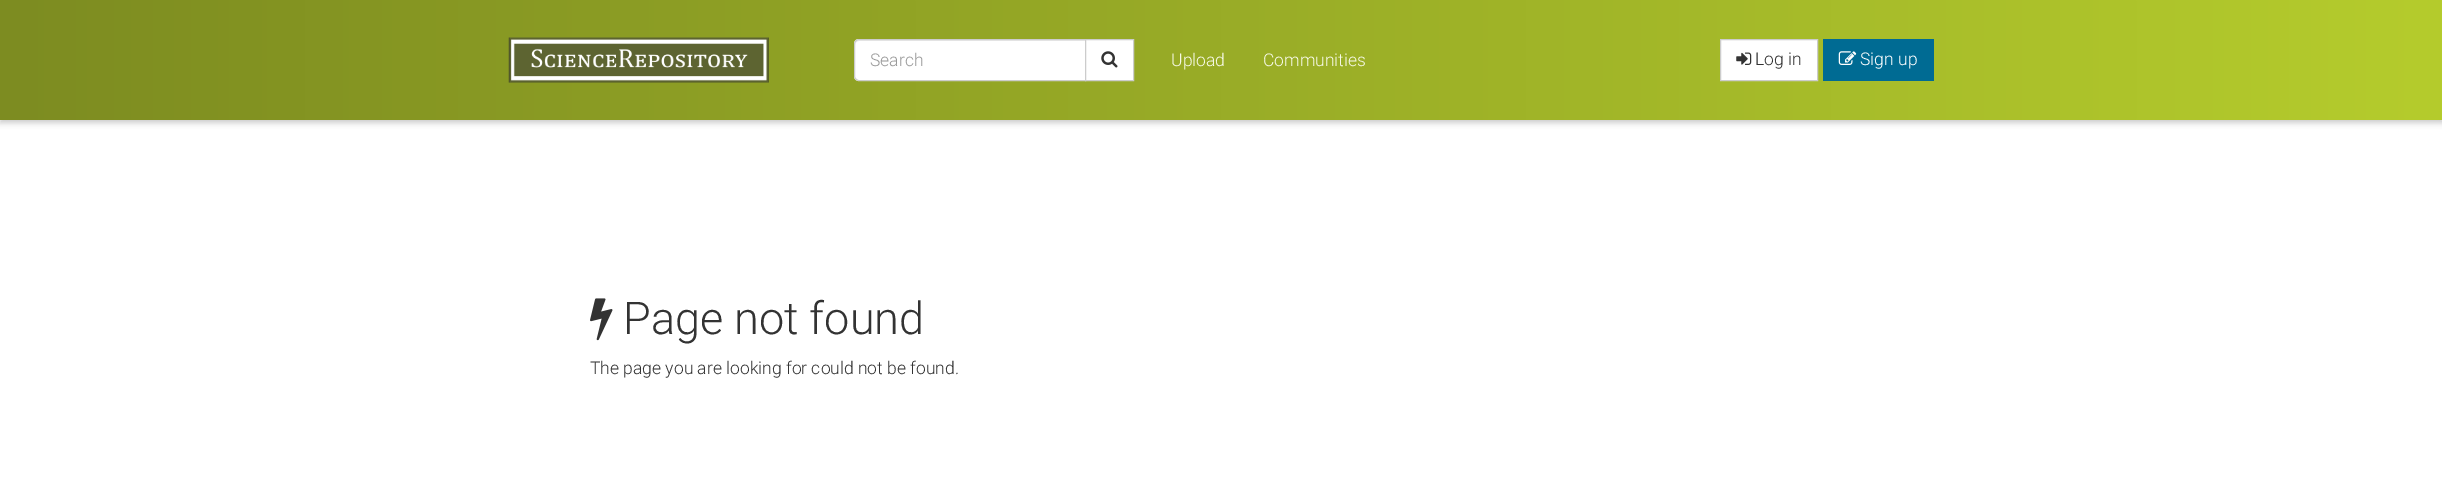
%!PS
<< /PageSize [2442 500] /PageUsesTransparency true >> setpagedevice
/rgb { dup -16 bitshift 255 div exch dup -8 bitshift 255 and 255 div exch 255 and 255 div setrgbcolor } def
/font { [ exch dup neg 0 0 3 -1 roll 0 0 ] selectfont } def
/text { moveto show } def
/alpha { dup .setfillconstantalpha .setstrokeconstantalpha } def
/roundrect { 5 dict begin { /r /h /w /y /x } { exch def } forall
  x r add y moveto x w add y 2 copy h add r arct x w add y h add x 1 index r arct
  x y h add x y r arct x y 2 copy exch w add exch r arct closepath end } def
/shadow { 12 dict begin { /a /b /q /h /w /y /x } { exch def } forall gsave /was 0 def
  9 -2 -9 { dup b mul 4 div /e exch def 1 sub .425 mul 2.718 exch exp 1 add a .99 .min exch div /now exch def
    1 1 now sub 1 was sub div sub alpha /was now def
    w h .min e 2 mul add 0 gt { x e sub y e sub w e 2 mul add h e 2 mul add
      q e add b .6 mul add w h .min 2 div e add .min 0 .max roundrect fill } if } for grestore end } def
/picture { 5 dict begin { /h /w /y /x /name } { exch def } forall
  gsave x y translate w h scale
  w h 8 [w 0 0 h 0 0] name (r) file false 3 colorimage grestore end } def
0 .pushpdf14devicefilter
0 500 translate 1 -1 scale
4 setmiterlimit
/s1 { /Roboto-Light 17.5 font 16#999999 rgb } def
/s2 { /Roboto-Light 17.5 font 16#F6F9E6 rgb } def
/s3 { /Roboto-Light 17.5 font 16#333333 rgb } def
/s4 { /Roboto-Light 17.5 font 16#FFFFFF rgb } def
/s5 { /Roboto-Light 45 font 16#333333 rgb } def
16#FFFFFF rgb
0 0 2442 500 rectfill
16#000000 rgb
0 3 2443 120 0 3 0.2 shadow
gsave 0 0 moveto 2442 0 lineto 2442 120 lineto 0 120 lineto closepath clip newpath
<< /ShadingType 2 /ColorSpace /DeviceRGB /Coords [0 60 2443 60] /Extend [true true] /Function << /FunctionType 2 /Domain [0 1] /C0 [0.49 0.549 0.129] /C1 [0.71 0.8 0.176] /N 1 >> >> shfill grestore
(pic1.raw) 508 37 261 46 picture
16#FFFFFF rgb
859 39 moveto 1086 39 lineto 1086 81 lineto 859 81 lineto 856 81 854 79 854 76 curveto 854 44 lineto 854 41 856 39 859 39 curveto closepath fill
16#ECECEC rgb
859 41 moveto 1085 41 lineto 1085 40 lineto 859 40 lineto 856 40 855 42 855 45 curveto 855 43 857 41 859 41 curveto closepath fill
16#CCCCCC rgb
859 39.5 moveto 1085.5 39.5 lineto 1085.5 80.5 lineto 859 80.5 lineto 856.5 80.5 854.5 78.5 854.5 76 curveto 854.5 44 lineto 854.5 41.5 856.5 39.5 859 39.5 curveto closepath stroke
s1
(Search) 870 66 text
16#FFFFFF rgb
1085.5 39.5 moveto 1133.5 39.5 lineto 1133.5 80.5 lineto 1085.5 80.5 lineto closepath gsave fill grestore
16#CCCCCC rgb
stroke
(pic2.raw) 1101 51 17 17 picture
s2
(Upload) 1171 66 text
(Communities) 1263 66 text
16#FFFFFF rgb
1720.5 39.5 moveto 1817.5 39.5 lineto 1817.5 80.5 lineto 1720.5 80.5 lineto closepath gsave fill grestore
16#CCCCCC rgb
stroke
(pic3.raw) 1736 52 16 13 picture
s3
(Log in) 1755 65 text
16#006B93 rgb
1823 39 111 42 rectfill
(pic4.raw) 1838 51 19 14 picture
s4
(Sign up) 1860 65 text
(pic5.raw) 590 298 23 43 picture
s5
(Page not found) 623 334 text
s3
(The page you are looking for could not be found.) 590 374 text
.poppdf14devicefilter showpage
